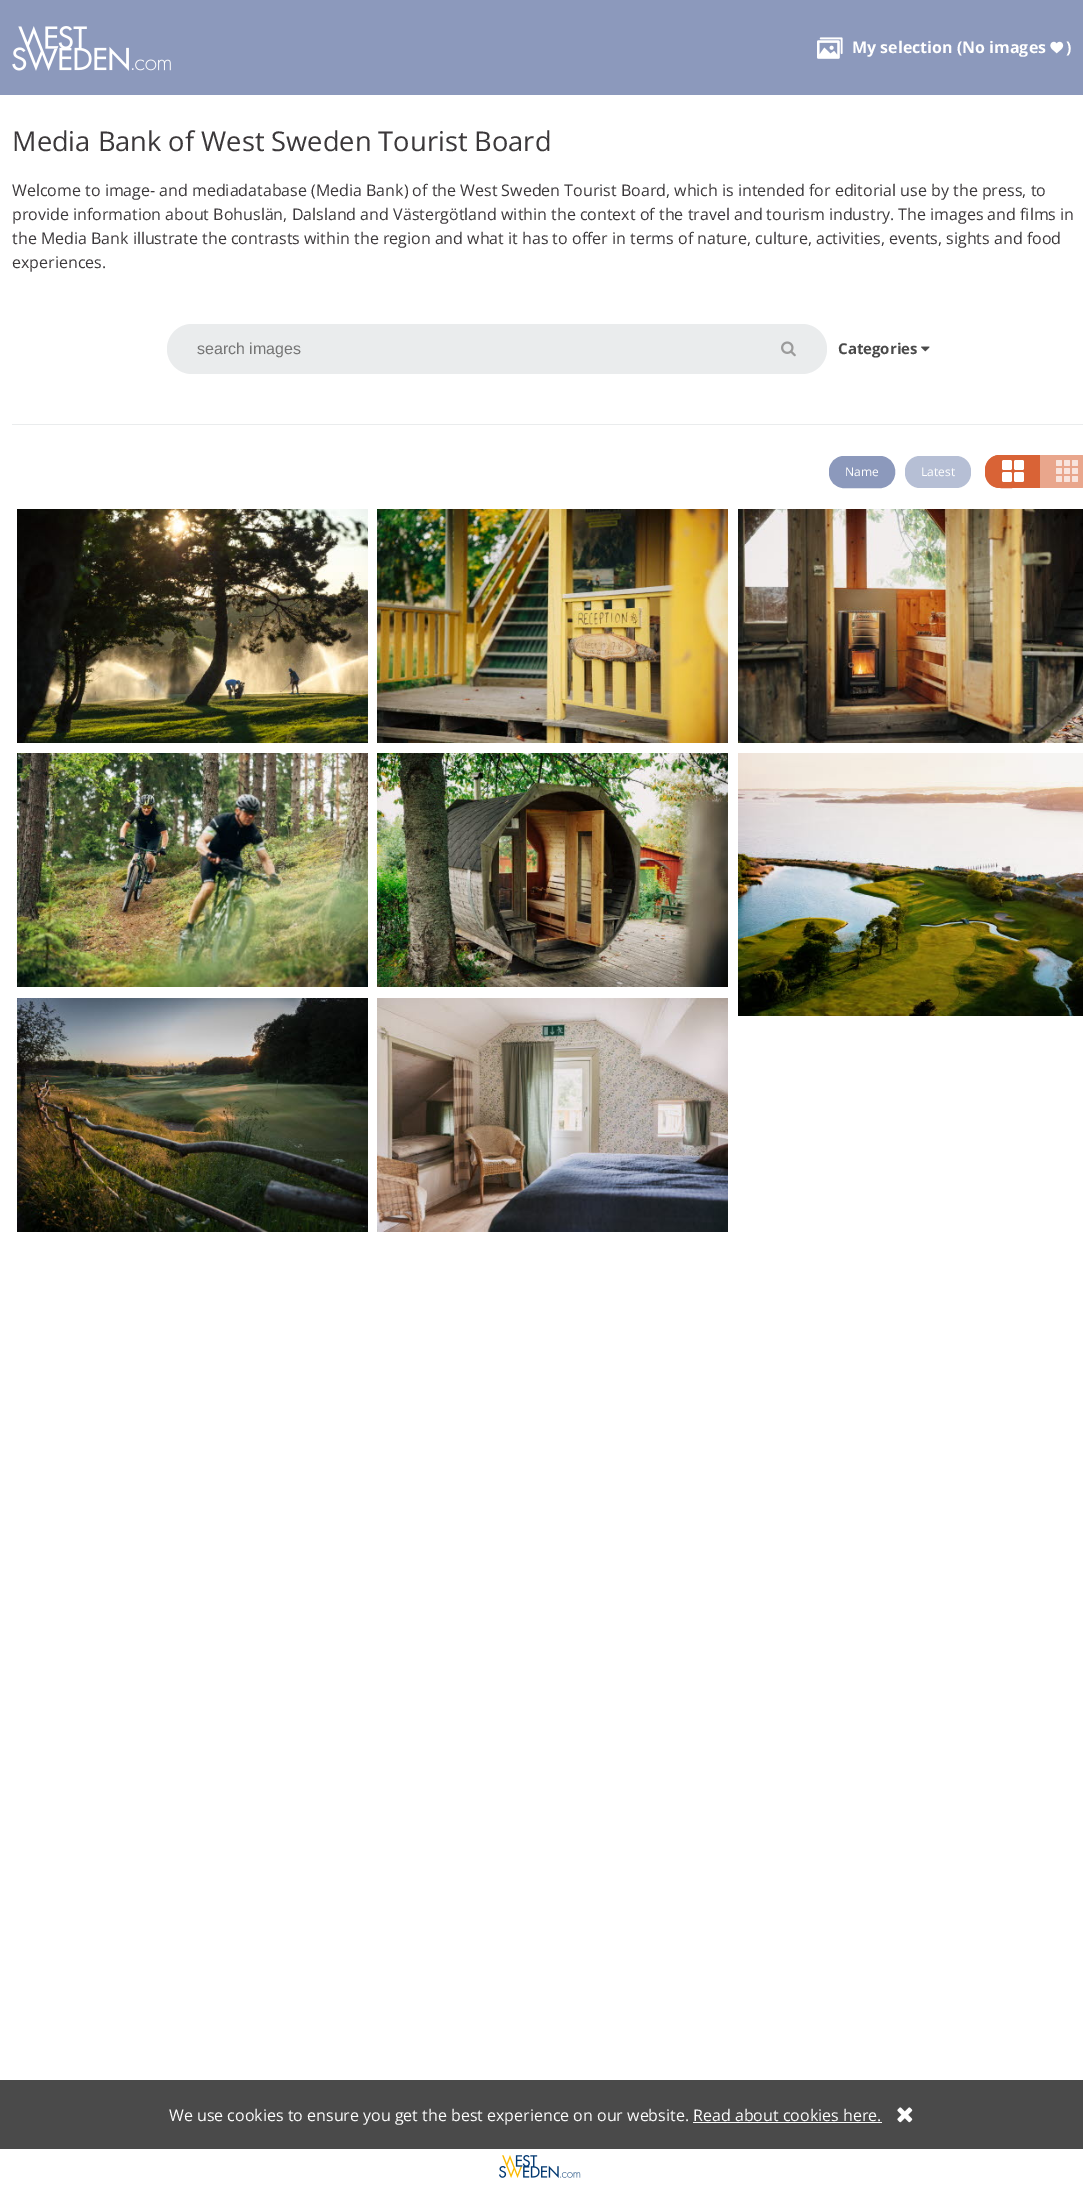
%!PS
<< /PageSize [1083 2185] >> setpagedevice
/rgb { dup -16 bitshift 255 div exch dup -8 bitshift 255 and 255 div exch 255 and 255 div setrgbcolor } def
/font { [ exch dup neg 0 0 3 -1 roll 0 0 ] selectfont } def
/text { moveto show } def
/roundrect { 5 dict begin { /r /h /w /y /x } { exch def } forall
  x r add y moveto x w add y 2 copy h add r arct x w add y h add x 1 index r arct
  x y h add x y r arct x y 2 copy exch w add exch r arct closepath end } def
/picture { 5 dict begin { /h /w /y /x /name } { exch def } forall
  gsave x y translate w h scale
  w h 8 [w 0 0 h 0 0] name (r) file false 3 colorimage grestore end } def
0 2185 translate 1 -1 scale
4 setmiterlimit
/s1 { /OpenSans-Bold 16 font 16#FFFFFF rgb } def
/s2 { /OpenSans-Regular 27.25 font 16#3B383A rgb } def
/s3 { /OpenSans-Regular 16 font 16#3B383A rgb } def
/s4 { /LiberationSans-Regular 16 font 16#757575 rgb } def
/s5 { /OpenSans-Bold 15 font 16#4A4A4A rgb } def
/s6 { /OpenSans-Regular 12 font 16#FFFFFF rgb } def
/s7 { /OpenSans-Regular 16 font 16#FFFFFF rgb } def
16#FFFFFF rgb
0 0 1083 2185 rectfill
16#8C99BC rgb
0 0 1083 95 rectfill
(pic1.raw) 12 26 159 45 picture
(pic2.raw) 817 37 26 22 picture
s1
(My selection \(No images) 852 53 text
(pic3.raw) 1050 41 14 13 picture
(\)) 1066 53 text
s2
(Media Bank of West Sweden Tourist Board) 12 151 text
s3
(Welcome to image- and mediadatabase \(Media Bank\) of the West Sweden Tourist Board, which is intended for editorial use by the press, to) 12 196 text
(provide information about Bohuslän, Dalsland and Västergötland within the context of the travel and tourism industry. The images and films in) 12 220 text
(the Media Bank illustrate the contrasts within the region and what it has to offer in terms of nature, culture, activities, events, sights and food) 12 244 text
(experiences.) 12 268 text
16#EAECED rgb
12 424 1071 1 rectfill
167 324 660 50 25 roundrect fill
s4
(search images) 197 354 text
(pic4.raw) 781 341 15 16 picture
s5
(Categories) 838 354 text
(pic5.raw) 921 346 9 6 picture
16#8C99BC rgb
829.5 456.5 65 31 14.5 roundrect gsave fill grestore
stroke
s6
(Name) 845 476 text
16#B6BFD5 rgb
905 456 66 32 15 roundrect fill
s6
(Latest) 921 476 text
16#D96336 rgb
1000 455 moveto 1040 455 lineto 1040 488 lineto 1000 488 lineto 991.5 488 985 481.5 985 473 curveto 985 470 lineto 985 461.5 991.5 455 1000 455 curveto closepath fill
1000 455 moveto 1040 455 lineto 1040 488 lineto 1013 488 lineto 1004 488 993 490 988 481 curveto 981 471 987 455 1000 455 curveto closepath 1000 456 moveto 1040 456 lineto 1040 487 lineto 1007 487 lineto 1003 487 998 487 995 486 curveto 981 480 984 456 1000 456 curveto closepath eofill
16#FFFFFF rgb
1002 460 10 10 2 roundrect fill
1014 460 10 10 2 roundrect fill
1002 472 10 10 2 roundrect fill
1014 472 10 10 2 roundrect fill
16#E9A68C rgb
1040 455 moveto 1080 455 lineto 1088.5 455 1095 461.5 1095 470 curveto 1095 473 lineto 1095 481.5 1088.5 488 1080 488 curveto 1040 488 lineto closepath fill
16#F8E4DD rgb
1056 460 6 6 1 roundrect fill
1064 460 6 6 1 roundrect fill
1072 460 6 6 1 roundrect fill
1056 468 6 6 1 roundrect fill
1064 468 6 6 1 roundrect fill
1072 468 6 6 1 roundrect fill
1056 476 6 6 1 roundrect fill
1064 476 6 6 1 roundrect fill
1072 476 6 6 1 roundrect fill
(pic6.raw) 17 509 351 234 picture
(pic7.raw) 377 509 351 234 picture
(pic8.raw) 738 509 345 234 picture
(pic9.raw) 17 753 351 234 picture
(pic10.raw) 377 753 351 234 picture
(pic11.raw) 738 753 345 263 picture
(pic12.raw) 17 998 351 234 picture
(pic13.raw) 377 998 351 234 picture
16#4A4A4A rgb
0 2080 1083 69 rectfill
s7
(We use cookies to ensure you get the best experience on our website. Read about cookies here.) 169 2121 text
(pic14.raw) 897 2107 16 16 picture
693 2122 189 1 rectfill
(pic15.raw) 499 2155 82 23 picture
showpage
